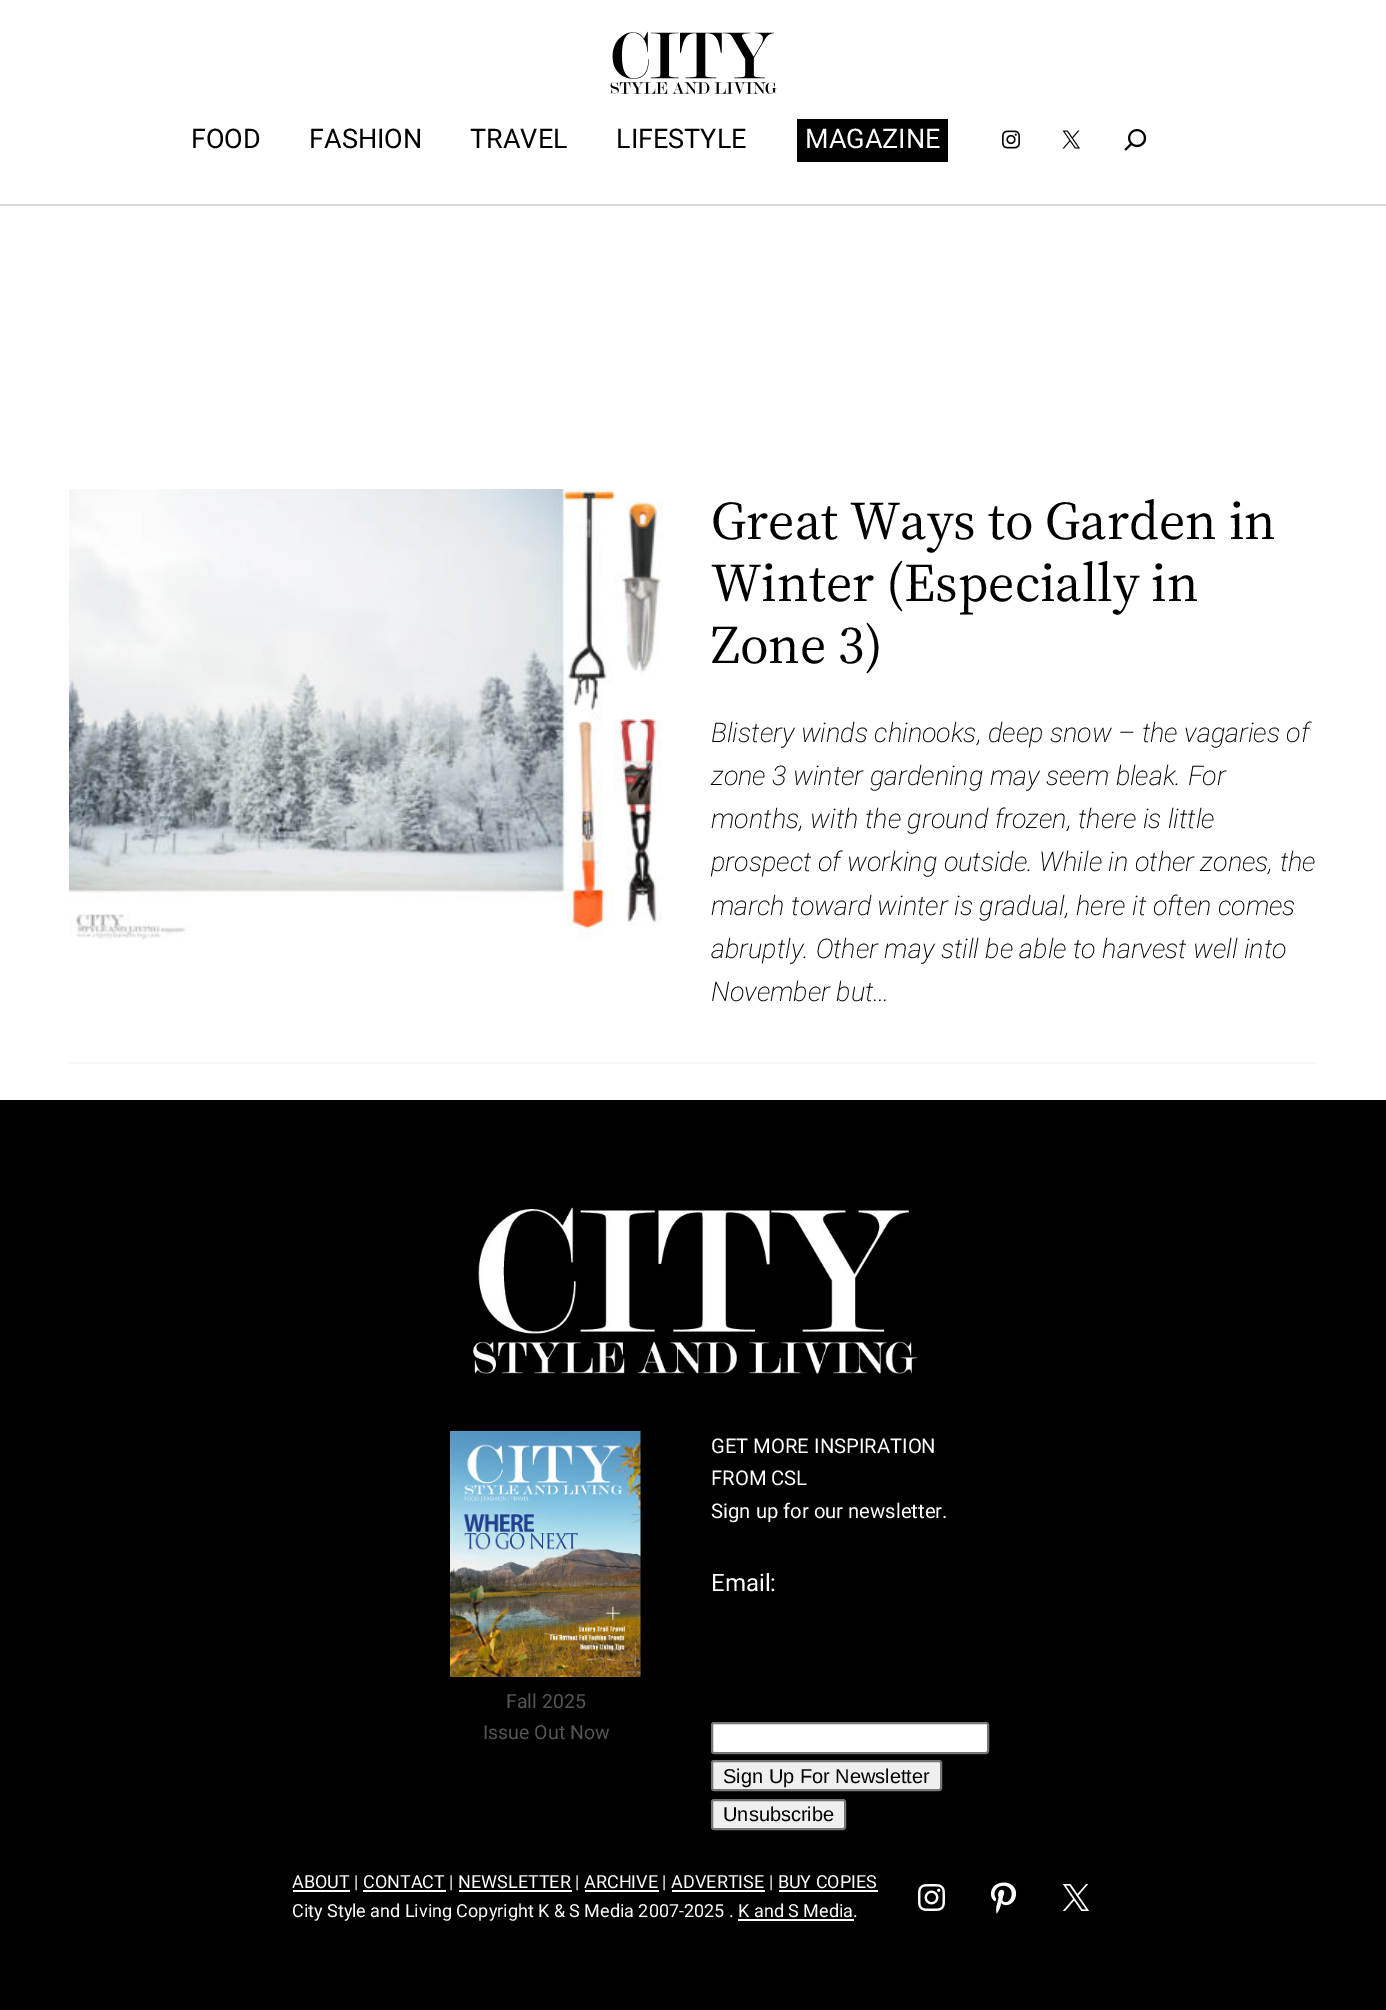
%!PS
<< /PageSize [1386 2010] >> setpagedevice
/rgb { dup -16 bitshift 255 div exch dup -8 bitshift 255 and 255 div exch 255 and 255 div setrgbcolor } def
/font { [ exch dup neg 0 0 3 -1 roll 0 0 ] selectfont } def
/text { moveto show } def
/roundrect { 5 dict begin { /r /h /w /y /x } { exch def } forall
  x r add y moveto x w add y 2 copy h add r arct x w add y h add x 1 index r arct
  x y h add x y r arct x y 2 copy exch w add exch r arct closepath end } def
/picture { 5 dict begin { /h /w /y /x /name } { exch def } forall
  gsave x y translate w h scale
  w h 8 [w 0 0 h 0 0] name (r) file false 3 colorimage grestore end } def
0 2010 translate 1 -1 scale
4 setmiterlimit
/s1 { /Roboto-Regular 27 font 16#000000 rgb } def
/s2 { /Roboto-Regular 27 font 16#FFFFFF rgb } def
/s3 { /SourceSerif4-Regular 54 font 16#000000 rgb } def
/s4 { /Roboto-ExtraLightItalic 27 font 16#000000 rgb } def
/s5 { /Roboto-Regular 19.5 font 16#555555 rgb } def
/s6 { /Roboto-Regular 20.25 font 16#FFFFFF rgb } def
/s7 { /Roboto-Regular 24 font 16#FFFFFF rgb } def
/s8 { /LiberationSans-Regular 20 font 16#000000 rgb } def
/s9 { /Roboto-Regular 18 font 16#FFFFFF rgb } def
16#FFFFFF rgb
0 0 1386 2010 rectfill
16#DADADA rgb
0 204 1386 2 rectfill
(pic1.raw) 610 31 167 63 picture
s1
(FOOD) 191 148 text
(FASHION) 309 148 text
(TRAVEL) 470 148 text
(LIFESTYLE) 616 148 text
797 119 151 43 rectfill
s2
(MAGAZINE) 805 148 text
(pic2.raw) 1002 130 18 19 picture
(pic3.raw) 1062 130 18 19 picture
(pic4.raw) 1124 129 23 22 picture
(pic5.raw) 69 489 594 451 picture
s3
(Great Ways to Garden in) 711 539 text
(Winter \(Especially in) 711 601 text
(Zone 3\)) 711 663 text
s4
(Blistery winds chinooks, deep snow – the vagaries of) 711 742 text
(zone 3 winter gardening may seem bleak. For) 711 785 text
(months, with the ground frozen, there is little) 711 828 text
(prospect of working outside. While in other zones, the) 711 871 text
(march toward winter is gradual, here it often comes) 711 915 text
(abruptly. Other may still be able to harvest well into) 711 958 text
(November but…) 711 1001 text
16#F6F6F6 rgb
69 1062 1248 2 rectfill
16#000000 rgb
0 1100 1386 910 rectfill
(pic6.raw) 473 1207 445 169 picture
(pic7.raw) 450 1431 191 246 picture
s5
(Fall 2025) 506 1708 text
(Issue Out Now) 483 1739 text
s6
(GET MORE INSPIRATION) 711 1453 text
(FROM CSL) 711 1485 text
(Sign up for our newsletter.) 711 1518 text
s7
(Email:) 711 1591 text
712 1723 276 30 2 roundrect gsave fill grestore
16#767676 rgb
2 setlinewidth
stroke
16#EFEFEF rgb
712 1761 229 29 2 roundrect gsave fill grestore
16#767676 rgb
stroke
s8
(Sign Up For Newsletter) 723 1783 text
16#EFEFEF rgb
712 1800 133 29 2 roundrect gsave fill grestore
16#767676 rgb
stroke
s8
(Unsubscribe) 723 1821 text
16#FFFFFF rgb
293 1890 57 2 rectfill
s9
(ABOUT | CONTACT | NEWSLETTER | ARCHIVE | ADVERTISE | BUY COPIES) 292 1888 text
363 1890 83 2 rectfill
459 1890 113 2 rectfill
585 1890 74 2 rectfill
672 1890 93 2 rectfill
779 1890 99 2 rectfill
(City Style and Living Copyright K & S Media 2007-2025 . K and S Media.) 292 1917 text
738 1919 116 2 rectfill
(pic8.raw) 918 1884 27 27 picture
(pic9.raw) 990 1882 27 32 picture
(pic10.raw) 1062 1884 28 27 picture
showpage
